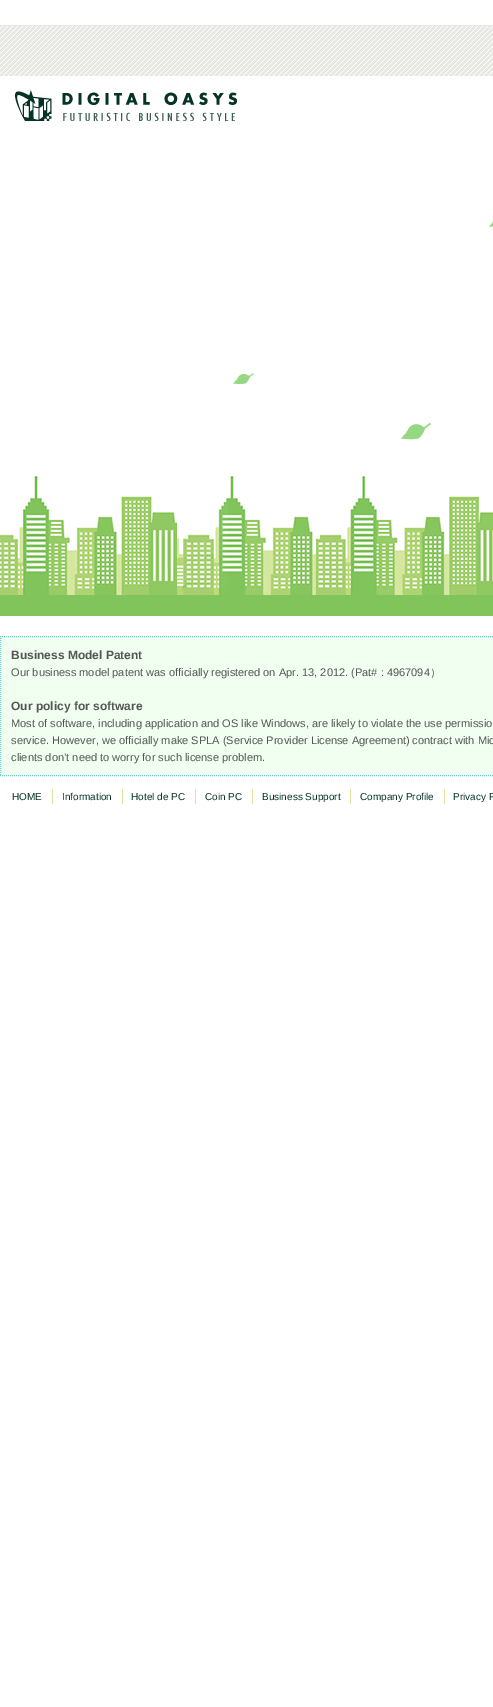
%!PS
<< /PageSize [493 1707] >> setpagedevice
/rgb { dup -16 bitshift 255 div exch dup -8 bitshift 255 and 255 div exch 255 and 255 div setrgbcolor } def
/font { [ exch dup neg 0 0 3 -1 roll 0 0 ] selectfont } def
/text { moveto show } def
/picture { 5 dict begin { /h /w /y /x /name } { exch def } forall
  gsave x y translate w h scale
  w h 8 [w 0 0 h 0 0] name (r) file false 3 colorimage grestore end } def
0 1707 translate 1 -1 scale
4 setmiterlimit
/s1 { /LiberationSans-Bold 12 font 16#555555 rgb } def
/s2 { /LiberationSans-Regular 11.05 font 16#555555 rgb } def
/s3 { /WenQuanYiZenHei-Medium 11.05 font 16#555555 rgb } def
/s4 { /LiberationSans-Regular 10 font 16#053326 rgb } def
16#FFFFFF rgb
0 0 493 1707 rectfill
(pic1.raw) 0 26 493 50 picture
16#E8E9E5 rgb
0 25 493 1 rectfill
(pic2.raw) 0 221 493 375 picture
(pic3.raw) 15 90 222 31 picture
16#80C45B rgb
0 596 493 20 rectfill
16#F0FFF0 rgb
0 636 493 140 rectfill
16#66CCCC rgb
[1 1] 0 setdash
0 636.5 moveto 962 636.5 lineto stroke
0 775.5 moveto 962 775.5 lineto stroke
0.5 636 moveto 0.5 776 lineto stroke
s1
(Business Model Patent) 11 659 text
s2
(Our business model patent was officially registered on Apr. 13, 2012. \(Pat# : 4967094) 11 676 text
s3
(）) 430 676 text
s1
(Our policy for software) 11 710 text
s2
(Most of software, including application and OS like Windows, are likely to violate the use permissio) 11 727 text
(service. However, we officially make SPLA \(Service Provider License Agreement\) contract with Mic) 11 744 text
(clients don’t need to worry for such license problem.) 11 761 text
16#D5E69F rgb
52 789 1 15 rectfill
s4
(HOME) 12 800 text
16#D5E69F rgb
122 789 1 15 rectfill
s4
(Information) 62 800 text
16#D5E69F rgb
195 789 1 15 rectfill
s4
(Hotel de PC) 131 800 text
16#D5E69F rgb
252 789 1 15 rectfill
s4
(Coin PC) 205 800 text
16#D5E69F rgb
350 789 1 15 rectfill
s4
(Business Support) 262 800 text
16#D5E69F rgb
444 789 1 15 rectfill
s4
(Company Profile) 360 800 text
(Privacy P) 453 800 text
showpage
